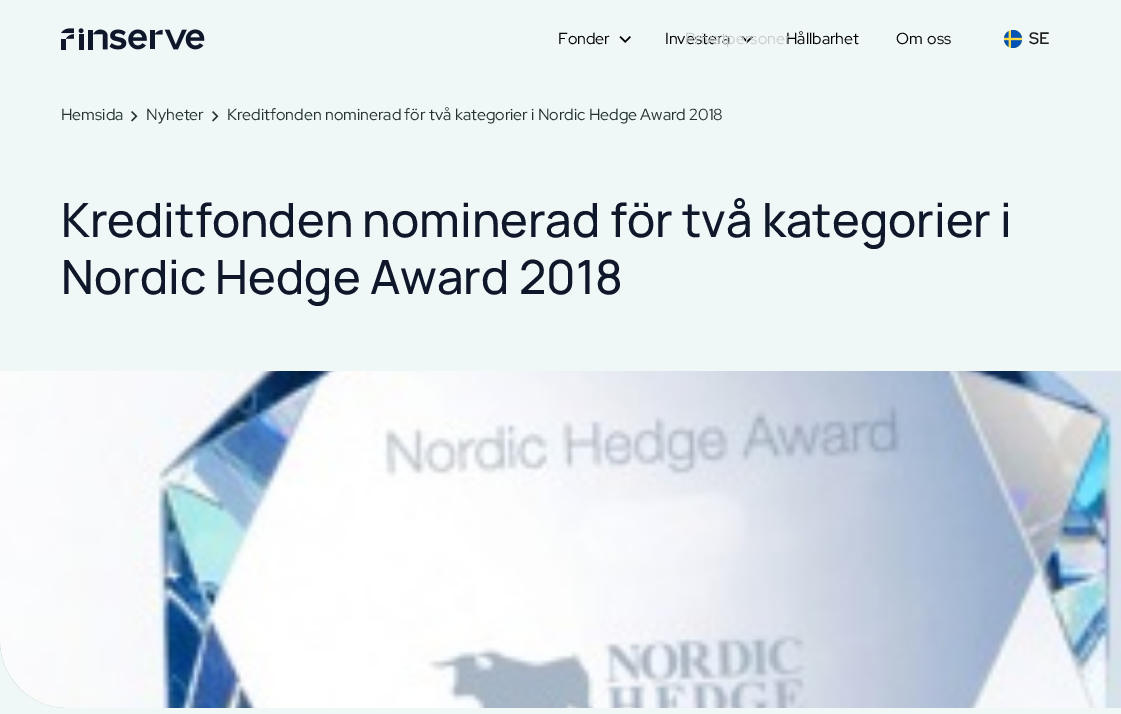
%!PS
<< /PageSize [1121 714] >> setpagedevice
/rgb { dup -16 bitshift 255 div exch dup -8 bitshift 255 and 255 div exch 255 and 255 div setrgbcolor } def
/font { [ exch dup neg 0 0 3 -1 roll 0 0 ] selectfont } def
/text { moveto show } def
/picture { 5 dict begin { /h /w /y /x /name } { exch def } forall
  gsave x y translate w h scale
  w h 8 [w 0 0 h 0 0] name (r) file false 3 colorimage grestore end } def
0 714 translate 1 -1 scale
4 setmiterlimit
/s1 { /RedHatDisplay-Regular 16 font 16#000000 rgb } def
/s2 { /RedHatDisplay-Regular 16 font 16#C8CECE rgb } def
/s3 { /RedHatDisplay-Bold 16 font 16#1E1E1E rgb } def
/s4 { /RedHatDisplay-Regular 16 font 16#243131 rgb } def
/s5 { /Manrope-Medium 47.1 font 16#0F172A rgb } def
16#F0F7F7 rgb
0 0 1121 714 rectfill
(pic1.raw) 61 28 144 22 picture
s1
(Fonder) 558 44 text
(pic2.raw) 619 36 12 7 picture
(Investera) 665 44 text
(pic2.raw) 741 36 12 7 picture
(Hållbarhet) 786 44 text
s2
(Privatpersoner) 685 44 text
16#000000 rgb
896 44 moveto 1 0 32 (Om oss) widthshow
(pic3.raw) 1004 30 18 18 picture
s3
(SE) 1029 44 text
s4
(Hemsida) 61 120 text
(pic4.raw) 131 111 7 11 picture
(Nyheter) 146 120 text
(pic4.raw) 212 111 7 11 picture
(Kreditfonden nominerad för två kategorier i Nordic Hedge Award 2018) 227 120 text
s5
(Kreditfonden nominerad för två kategorier i) 61 237 text
(Nordic Hedge Award 2018) 61 294 text
16#A9BACD rgb
0 371 moveto 1121 371 lineto 1121 708 lineto 67 708 lineto 30 708 0 678 0 641 curveto closepath fill
(pic5.raw) 0 371 1121 337 picture
showpage
